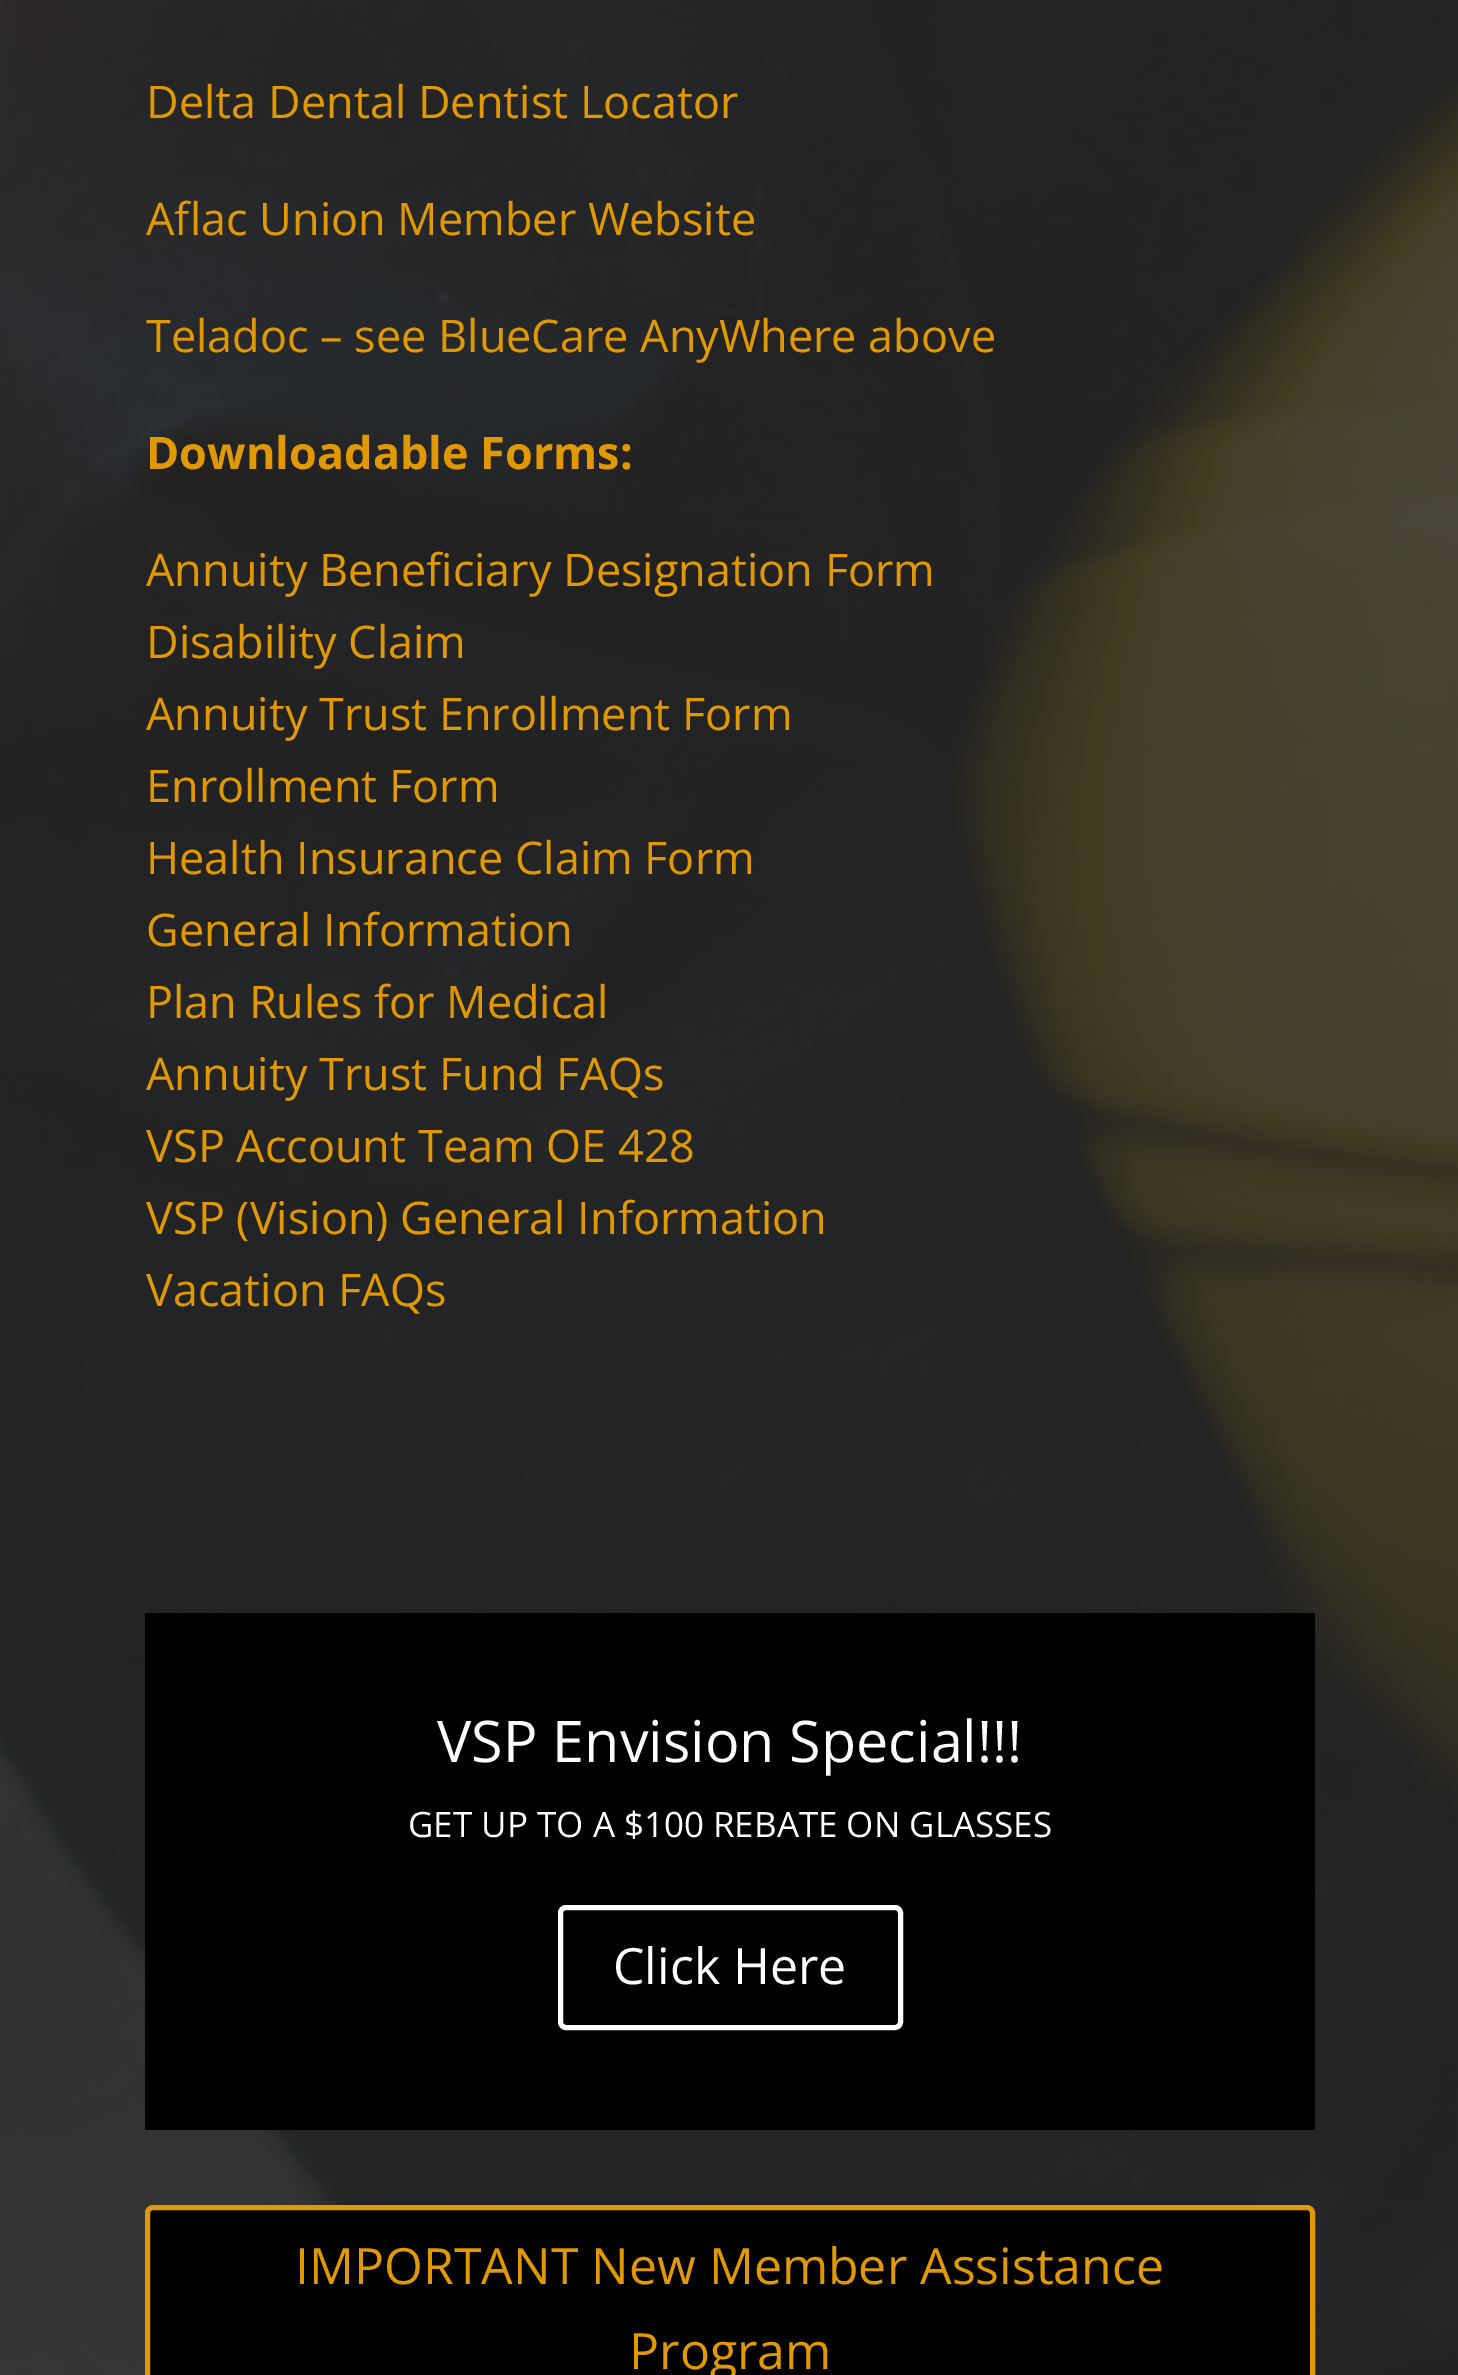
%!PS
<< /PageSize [1458 2375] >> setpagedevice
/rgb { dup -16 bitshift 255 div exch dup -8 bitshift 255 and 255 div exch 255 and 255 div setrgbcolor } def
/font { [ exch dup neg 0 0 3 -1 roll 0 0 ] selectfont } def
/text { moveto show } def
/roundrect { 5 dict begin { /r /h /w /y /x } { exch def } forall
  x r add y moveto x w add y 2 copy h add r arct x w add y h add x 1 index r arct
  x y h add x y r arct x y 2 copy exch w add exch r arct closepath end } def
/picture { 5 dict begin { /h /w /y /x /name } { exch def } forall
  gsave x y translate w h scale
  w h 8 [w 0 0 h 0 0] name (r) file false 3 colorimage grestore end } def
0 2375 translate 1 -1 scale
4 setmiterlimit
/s1 { /OpenSans-Regular 45 font 16#E09900 rgb } def
/s2 { /OpenSans-Bold 45 font 16#E09900 rgb } def
/s3 { /OpenSans-Regular 57.5 font 16#FFFFFF rgb } def
/s4 { /OpenSans-Regular 35 font 16#FFFFFF rgb } def
/s5 { /OpenSans-Regular 50 font 16#FFFFFF rgb } def
/s6 { /OpenSans-Regular 50 font 16#E09900 rgb } def
16#FFFFFF rgb
0 0 1458 2375 rectfill
(pic1.raw) 0 0 1458 2375 picture
s1
(Delta Dental Dentist Locator) 146 118 text
(Aflac Union Member Website) 146 235 text
(Teladoc – see BlueCare AnyWhere above) 146 352 text
s2
(Downloadable Forms:) 146 469 text
s1
(Annuity Beneficiary Designation Form) 146 586 text
(Disability Claim) 146 658 text
(Annuity Trust Enrollment Form) 146 730 text
(Enrollment Form) 146 802 text
(Health Insurance Claim Form) 146 874 text
(General Information) 146 946 text
(Plan Rules for Medical) 146 1018 text
(Annuity Trust Fund FAQs) 146 1090 text
(VSP Account Team OE 428) 146 1162 text
(VSP \(Vision\) General Information) 146 1234 text
(Vacation FAQs) 146 1306 text
16#000000 rgb
145 1613 1170 517 rectfill
s3
(VSP Envision Special!!!) 437 1762 text
s4
(GET UP TO A $100 REBATE ON GLASSES) 408 1837 text
5 setlinewidth
560.5 1907.5 340 120 5.5 roundrect stroke
s5
(Click Here) 613 1984 text
16#000000 rgb
147.5 2207.5 1165 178 5.5 roundrect gsave fill grestore
16#E09900 rgb
stroke
(IMPORTANT New Member Assistance) 295 2284 text
(Program) 629 2369 text
showpage
